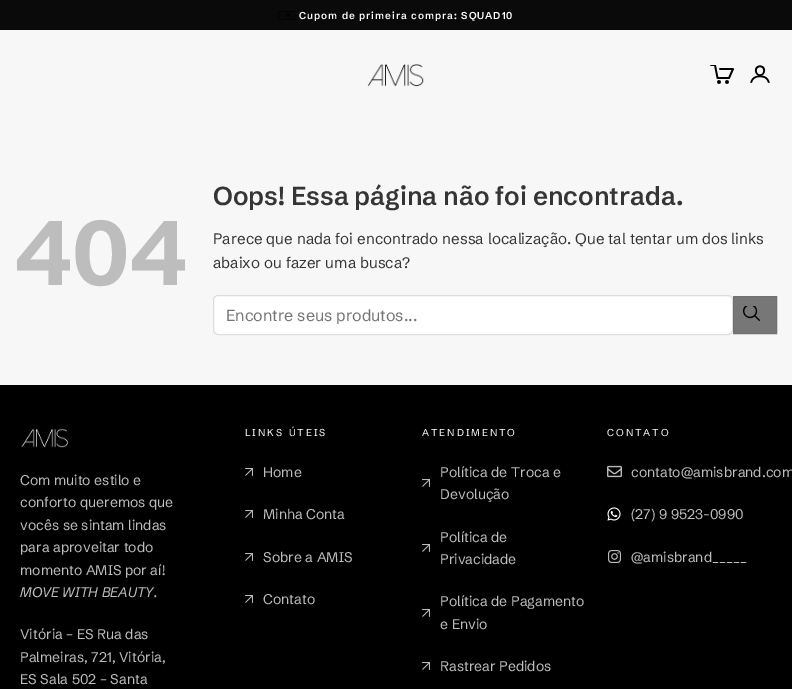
%!PS
<< /PageSize [792 689] >> setpagedevice
/rgb { dup -16 bitshift 255 div exch dup -8 bitshift 255 and 255 div exch 255 and 255 div setrgbcolor } def
/font { [ exch dup neg 0 0 3 -1 roll 0 0 ] selectfont } def
/text { moveto show } def
/roundrect { 5 dict begin { /r /h /w /y /x } { exch def } forall
  x r add y moveto x w add y 2 copy h add r arct x w add y h add x 1 index r arct
  x y h add x y r arct x y 2 copy exch w add exch r arct closepath end } def
/picture { 5 dict begin { /h /w /y /x /name } { exch def } forall
  gsave x y translate w h scale
  w h 8 [w 0 0 h 0 0] name (r) file false 3 colorimage grestore end } def
0 689 translate 1 -1 scale
4 setmiterlimit
/s1 { /SchibstedGrotesk-Bold 91 font 16#BDBDBD rgb } def
/s2 { /SchibstedGrotesk-SemiBold 25.8 font 16#353535 rgb } def
/s3 { /SchibstedGrotesk-Regular 15.2 font 16#353535 rgb } def
/s4 { /SchibstedGrotesk-Regular 16 font 16#757575 rgb } def
/s5 { /SchibstedGrotesk-Regular 14 font 16#BDBDBD rgb } def
/s6 { /SchibstedGrotesk-Italic 14 font 16#BDBDBD rgb } def
16#F7F7F7 rgb
0 0 792 689 rectfill
16#0A0A0A rgb
0 0 792 30 rectfill
(pic1.raw) 278 11 17 9 picture
/SchibstedGrotesk-SemiBold 10 font
16#FFFFFF rgb
299 19 moveto 1 0 (Cupom de primeira compra: SQUAD10) ashow
(pic2.raw) 367 64 57 23 picture
(pic3.raw) 710 65 24 19 picture
(pic4.raw) 750 65 20 18 picture
s1
(404) 15 285 text
s2
(Oops! Essa página não foi encontrada.) 213 205 text
s3
(Parece que nada foi encontrado nessa localização. Que tal tentar um dos links) 213 244 text
(abaixo ou fazer uma busca?) 213 268 text
16#FFFFFF rgb
213.5 295.5 519 39 4.5 roundrect gsave fill grestore
16#DDDDDD rgb
stroke
s4
(Encontre seus produtos...) 226 321 text
16#777777 rgb
733.5 296.5 moveto 776.5 296.5 lineto 776.5 333.5 lineto 733.5 333.5 lineto closepath gsave fill grestore
16#717171 rgb
stroke
(pic5.raw) 743 306 17 15 picture
16#000000 rgb
0 385 792 304 rectfill
(pic6.raw) 21 428 47 20 picture
s5
(Com muito estilo e) 20 485 text
(conforto queremos que) 20 507 text
(vocês se sintam lindas) 20 530 text
(para aproveitar todo) 20 552 text
(momento AMIS por aí!) 20 575 text
s6
(MOVE WITH BEAUTY.) 20 597 text
s5
(Vitória – ES Rua das) 20 639 text
(Palmeiras, 721, Vitória,) 20 662 text
(ES Sala 502 – Santa) 20 684 text
/SchibstedGrotesk-Regular 10 font
16#FFFFFF rgb
245 436 moveto 2 0 (LINKS ÚTEIS) ashow
(pic7.raw) 245 468 8 8 picture
s5
(Home) 263 477 text
(pic7.raw) 245 510 8 8 picture
(Minha Conta) 263 519 text
(pic7.raw) 245 553 8 8 picture
(Sobre a AMIS) 263 562 text
(pic7.raw) 245 595 8 8 picture
(Contato) 263 604 text
/SchibstedGrotesk-Regular 10 font
16#FFFFFF rgb
422 436 moveto 2 0 (ATENDIMENTO) ashow
(pic7.raw) 422 479 8 8 picture
s5
(Política de Troca e) 440 477 text
(Devolução) 440 499 text
(pic7.raw) 422 544 8 8 picture
(Política de) 440 542 text
(Privacidade) 440 564 text
(pic7.raw) 422 609 8 8 picture
(Política de Pagamento) 440 606 text
(e Envio) 440 629 text
(pic7.raw) 422 662 8 8 picture
(Rastrear Pedidos) 440 671 text
/SchibstedGrotesk-Regular 10 font
16#FFFFFF rgb
607 436 moveto 2 0 (CONTATO) ashow
(pic8.raw) 607 465 15 13 picture
s5
(contato@amisbrand.com) 631 477 text
(pic9.raw) 607 507 14 14 picture
(\(27\) 9 9523-0990) 631 519 text
(pic10.raw) 608 550 14 13 picture
(@amisbrand_____) 631 562 text
showpage
